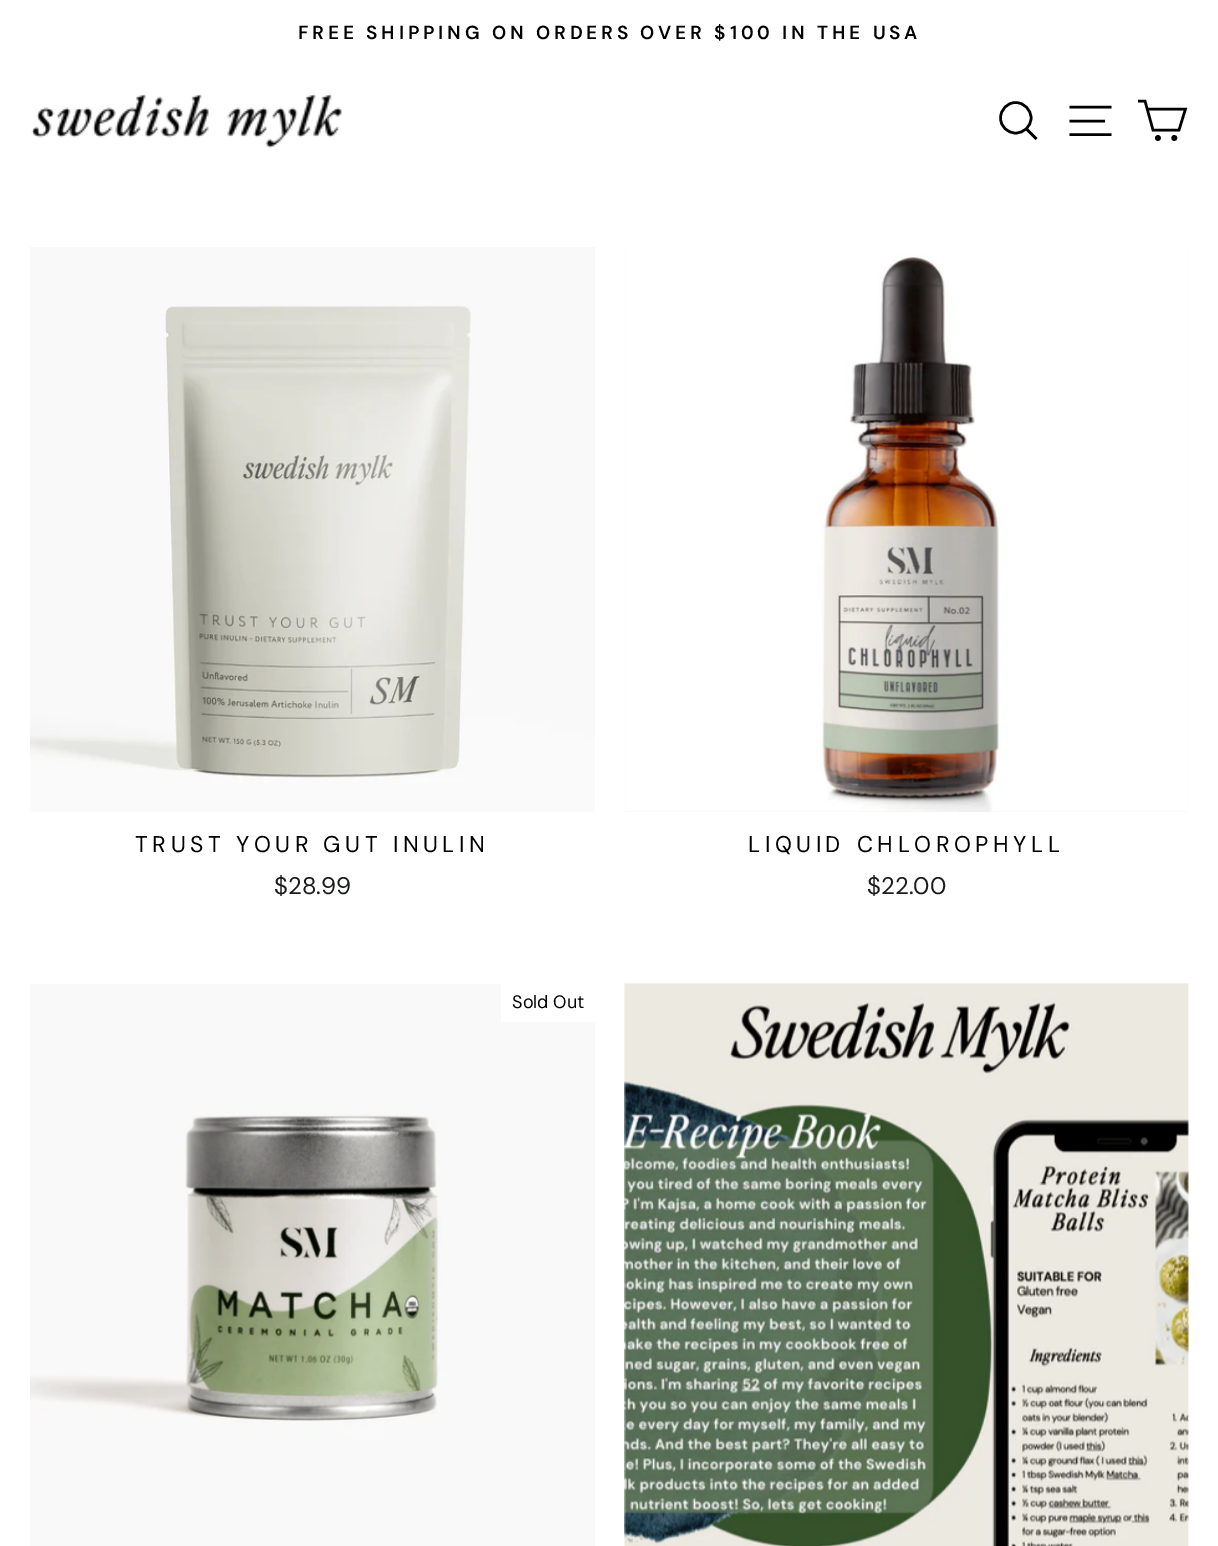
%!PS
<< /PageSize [1218 1546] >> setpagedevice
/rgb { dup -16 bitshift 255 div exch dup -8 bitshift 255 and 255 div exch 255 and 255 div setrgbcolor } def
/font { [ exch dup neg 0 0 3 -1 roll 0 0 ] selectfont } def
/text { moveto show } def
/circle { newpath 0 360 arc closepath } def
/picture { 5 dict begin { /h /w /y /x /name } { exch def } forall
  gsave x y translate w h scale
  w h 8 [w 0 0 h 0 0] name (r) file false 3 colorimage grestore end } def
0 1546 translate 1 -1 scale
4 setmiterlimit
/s1 { /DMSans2-Regular 24 font 16#1C1D1D rgb } def
/s2 { /DMSans-Regular 18 font 16#000000 rgb } def
16#FFFFFF rgb
0 0 1218 1546 rectfill
/DMSans-SemiBold 18.9 font
16#000000 rgb
298 39 moveto 3.8 0 (FREE SHIPPING ON ORDERS OVER $100 IN THE USA) ashow
(pic1.raw) 31 93 311 55 picture
2.5 setlinewidth
1031 118 moveto 1031 126.5 1024 133 1015.5 133 curveto 1007.5 133 1000.5 126.5 1000.5 118 curveto 1000.5 109.5 1007.5 102.5 1015.5 102.5 curveto 1024 102.5 1031 109.5 1031 118 curveto closepath 1036.5 139 moveto 1026.5 129 lineto stroke
1069.5 107 moveto 1111.5 107 lineto 1069.5 121 moveto 1105 121 lineto 1069.5 134.5 moveto 1111.5 134.5 lineto stroke
1147 109 moveto 1185.5 109 lineto 1179 130 lineto 1153 130 lineto 1145 101 lineto 1138 101 lineto stroke
1157.9 138 1.6 circle stroke
1174.3 138 1.6 circle stroke
(pic2.raw) 30 247 565 565 picture
/DMSans-Regular 22.75 font
135 852 moveto 4.55 0 (TRUST YOUR GUT INULIN) ashow
s1
($28.99) 274 894 text
16#EDE9E1 rgb
625 247 563 565 rectfill
(pic3.raw) 625 247 563 565 picture
/DMSans-Regular 22.75 font
16#000000 rgb
748 852 moveto 1 0 32 4.55 0 (LIQUID CHLOROPHYLL) awidthshow
s1
($22.00) 867 894 text
(pic4.raw) 30 984 565 562 picture
16#FFFFFF rgb
501 984 94 38 rectfill
s2
(Sold Out) 512 1008 text
16#EDE9E1 rgb
625 984 563 562 rectfill
(pic5.raw) 624 983 565 563 picture
showpage
